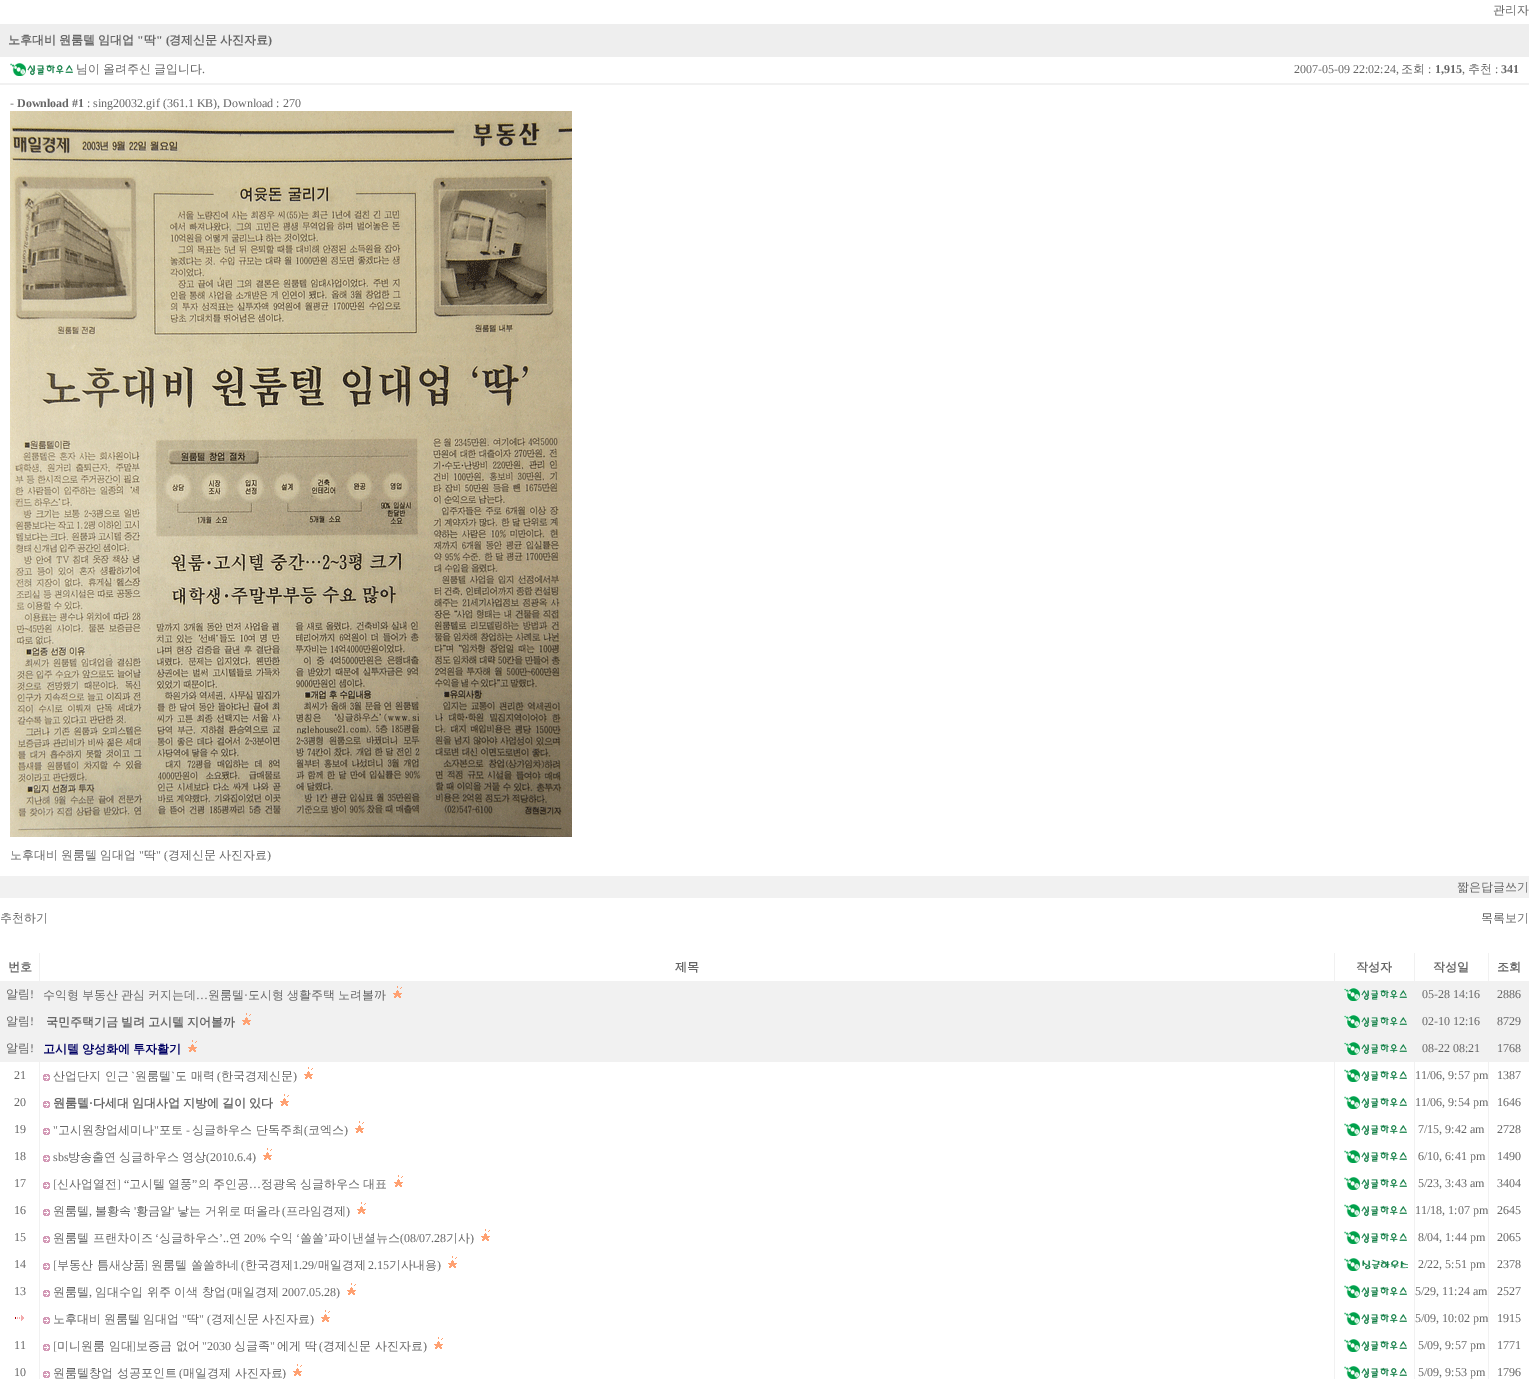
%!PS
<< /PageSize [1529 1379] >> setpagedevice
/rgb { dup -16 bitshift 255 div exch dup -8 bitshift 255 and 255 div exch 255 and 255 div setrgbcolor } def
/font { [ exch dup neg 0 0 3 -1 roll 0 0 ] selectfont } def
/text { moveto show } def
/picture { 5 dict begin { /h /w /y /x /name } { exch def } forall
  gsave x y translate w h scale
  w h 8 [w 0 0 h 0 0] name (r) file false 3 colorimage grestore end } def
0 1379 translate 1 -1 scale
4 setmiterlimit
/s1 { /WenQuanYiZenHei-Medium 12 font 16#666666 rgb } def
/s2 { /WenQuanYiZenHei-Bold 12 font 16#666666 rgb } def
/s3 { /LiberationSerif-Bold 12 font 16#666666 rgb } def
/s4 { /LiberationSerif-Regular 12 font 16#666666 rgb } def
16#FFFFFF rgb
0 0 1529 1379 rectfill
s1
(관리자) 1493 14 text
16#EEEEEE rgb
0 24 1529 33 rectfill
s2
(노후대비) 8 44 text
(원룸텔) 59 44 text
(임대업) 98 44 text
s3
(") 137 44 text
s2
(딱) 144 44 text
s3
(" \() 156 44 text
s2
(경제신문) 169 44 text
(사진자료) 220 44 text
s3
(\)) 268 44 text
(pic1.raw) 10 63 63 13 picture
/WenQuanYiZenHei-Medium 12 font
76 73 moveto -0.5 0 32 (님이 올려주신 글입니다) widthshow
s4
(.) 202 73 text
(2007-05-09 22:02:24,) 1294 73 text
s1
(조회) 1401 73 text
s4
(:) 1428 73 text
s3
(1,915) 1435 73 text
s4
(,) 1462 73 text
s1
(추천) 1468 73 text
s4
(:) 1495 73 text
s3
(341) 1501 73 text
16#F1F1F1 rgb
0 83 1529 2 rectfill
s4
(-) 10 107 text
s3
(Download #1) 17 107 text
s4
(: sing20032.gif \(361.1 KB\), Download : 270) 87 107 text
(pic2.raw) 10 111 562 726 picture
s1
(노후대비) 10 859 text
(원룸텔) 61 859 text
(임대업) 100 859 text
s4
(") 139 859 text
s1
(딱) 144 859 text
s4
(" \() 156 859 text
s1
(경제신문) 168 859 text
(사진자료) 219 859 text
s4
(\)) 267 859 text
16#F1F1F1 rgb
0 876 1529 22 rectfill
s1
(짧은답글쓰기) 1457 891 text
(추천하기) 0 922 text
(목록보기) 1481 922 text
16#F1F1F1 rgb
39 953 1 28 rectfill
s2
(번호) 8 971 text
(제목) 675 971 text
16#F1F1F1 rgb
1334 953 1 28 rectfill
1414 953 1 28 rectfill
s2
(작성자) 1356 971 text
16#F1F1F1 rgb
1488 953 1 28 rectfill
s2
(작성일) 1433 971 text
(조회) 1497 971 text
16#F1F1F1 rgb
0 981 1529 81 rectfill
s1
(알림) 6 998 text
s4
(!) 30 998 text
/WenQuanYiZenHei-Medium 12 font
43 999 moveto -0.5 0 32 (수익형 부동산 관심 커지는데) widthshow
(원룸텔) 208 999 text
s4
(·) 244 999 text
/WenQuanYiZenHei-Medium 12 font
248 999 moveto -0.5 0 32 (도시형 생활주택 노려볼까) widthshow
(pic3.raw) 393 986 9 12 picture
s4
(…) 196 999 text
(pic4.raw) 1344 988 63 13 picture
(05-28 14:16) 1422 998 text
(2886) 1497 998 text
s1
(알림) 6 1025 text
s4
(!) 30 1025 text
/WenQuanYiZenHei-Bold 12 font
46 1026 moveto -0.5 0 32 (국민주택기금 빌려 고시텔 지어볼까) widthshow
(pic3.raw) 242 1013 9 12 picture
(pic4.raw) 1344 1015 63 13 picture
s4
(02-10 12:16) 1422 1025 text
(8729) 1497 1025 text
s1
(알림) 6 1052 text
s4
(!) 30 1052 text
/WenQuanYiZenHei-Bold 12 font
16#000063 rgb
43 1053 moveto -0.5 0 32 (고시텔 양성화에 투자활기) widthshow
(pic3.raw) 188 1040 9 12 picture
(pic4.raw) 1344 1042 63 13 picture
s4
(08-22 08:21) 1422 1052 text
(1768) 1497 1052 text
16#F1F1F1 rgb
39 1062 1 317 rectfill
s4
(21) 14 1079 text
(pic5.raw) 43 1074 7 7 picture
s1
(산업단지 인근) 53 1080 text
s4
(`) 131 1080 text
s1
(원룸텔) 135 1080 text
s4
(`) 171 1080 text
s1
(도 매력) 175 1080 text
s4
(\() 217 1080 text
s1
(한국경제신문) 221 1080 text
s4
(\)) 293 1080 text
(pic6.raw) 304 1067 9 12 picture
16#F1F1F1 rgb
1334 1062 1 317 rectfill
1414 1062 1 317 rectfill
(pic1.raw) 1344 1069 63 13 picture
1488 1062 1 317 rectfill
s4
(11/06, 9:57 pm) 1415 1079 text
(1387) 1497 1079 text
(20) 14 1106 text
(pic5.raw) 43 1101 7 7 picture
s2
(원룸텔) 53 1107 text
s3
(·) 89 1107 text
/WenQuanYiZenHei-Bold 12 font
93 1107 moveto -0.5 0 32 (다세대 임대사업 지방에 길이 있다) widthshow
(pic6.raw) 280 1094 9 12 picture
(pic1.raw) 1344 1096 63 13 picture
s4
(11/06, 9:54 pm) 1415 1106 text
(1646) 1497 1106 text
(19) 14 1133 text
(pic5.raw) 43 1128 7 7 picture
(") 53 1134 text
s1
(고시원창업세미나) 58 1134 text
s4
(") 154 1134 text
s1
(포토) 159 1134 text
s4
(-) 186 1134 text
s1
(싱글하우스 단독주최) 192 1134 text
s4
(\() 304 1134 text
s1
(코엑스) 308 1134 text
s4
(\)) 344 1134 text
(pic6.raw) 355 1121 9 12 picture
(pic1.raw) 1344 1123 63 13 picture
(7/15, 9:42 am) 1418 1133 text
(2728) 1497 1133 text
(18) 14 1160 text
(pic5.raw) 43 1155 7 7 picture
(sbs) 53 1161 text
/WenQuanYiZenHei-Medium 12 font
68 1161 moveto -0.5 0 32 (방송출연 싱글하우스 영상) widthshow
s4
(\(2010.6.4\)) 206 1161 text
(pic6.raw) 263 1148 9 12 picture
(pic1.raw) 1344 1150 63 13 picture
(6/10, 6:41 pm) 1418 1160 text
(1490) 1497 1160 text
(17) 14 1187 text
(pic5.raw) 43 1182 7 7 picture
([) 53 1188 text
s1
(신사업열전) 57 1188 text
s4
(] “) 117 1188 text
s1
(고시텔) 129 1188 text
(열풍) 168 1188 text
s4
(”) 192 1188 text
s1
(의) 198 1188 text
(주인공) 213 1188 text
s4
(…) 249 1188 text
s1
(정광옥) 261 1188 text
(싱글하우스) 300 1188 text
(대표) 363 1188 text
(pic6.raw) 394 1175 9 12 picture
(pic1.raw) 1344 1177 63 13 picture
s4
(5/23, 3:43 am) 1418 1187 text
(3404) 1497 1187 text
(16) 14 1214 text
s1
(원룸텔) 53 1215 text
(불황속) 95 1215 text
s4
(') 134 1215 text
s1
(황금알) 136 1215 text
s4
(') 172 1215 text
s1
(낳는 거위로 떠올라) 177 1215 text
s4
(\() 282 1215 text
s1
(프라임경제) 286 1215 text
s4
(\)) 346 1215 text
(pic6.raw) 357 1202 9 12 picture
(pic5.raw) 43 1209 7 7 picture
(,) 89 1215 text
(pic1.raw) 1344 1204 63 13 picture
(11/18, 1:07 pm) 1415 1214 text
(2645) 1497 1214 text
(15) 14 1241 text
(pic5.raw) 43 1236 7 7 picture
s1
(원룸텔 프랜차이즈) 53 1242 text
s4
(‘) 155 1242 text
s1
(싱글하우스) 159 1242 text
s4
(’..) 219 1242 text
s1
(연) 229 1242 text
s4
(20%) 244 1242 text
s1
(수익) 269 1242 text
s4
(‘) 296 1242 text
s1
(쏠쏠) 300 1242 text
s4
(’) 324 1242 text
s1
(파이낸셜뉴스) 328 1242 text
s4
(\(08/07.28) 400 1242 text
s1
(기사) 446 1242 text
s4
(\)) 470 1242 text
(pic6.raw) 481 1229 9 12 picture
(pic1.raw) 1344 1231 63 13 picture
(8/04, 1:44 pm) 1418 1241 text
(2065) 1497 1241 text
(14) 14 1268 text
(pic5.raw) 43 1263 7 7 picture
([) 53 1269 text
s1
(부동산 틈새상품) 57 1269 text
s4
(]) 144 1269 text
s1
(원룸텔 쏠쏠하네) 151 1269 text
s4
(\() 241 1269 text
s1
(한국경제) 245 1269 text
s4
(1.29/) 293 1269 text
s1
(매일경제) 318 1269 text
s4
(2.15) 368 1269 text
s1
(기사내용) 389 1269 text
s4
(\)) 437 1269 text
(pic6.raw) 448 1256 9 12 picture
(pic7.raw) 1344 1258 64 13 picture
(2/22, 5:51 pm) 1418 1268 text
(2378) 1497 1268 text
(13) 14 1295 text
(pic5.raw) 43 1290 7 7 picture
s1
(원룸텔) 53 1296 text
s4
(,) 89 1296 text
s1
(임대수입 위주 이색 창업) 95 1296 text
s4
(\() 227 1296 text
s1
(매일경제) 231 1296 text
s4
(2007.05.28\)) 282 1296 text
(pic6.raw) 347 1283 9 12 picture
(pic1.raw) 1344 1285 63 13 picture
(5/29, 11:24 am) 1415 1295 text
(2527) 1497 1295 text
(pic8.raw) 15 1315 9 6 picture
s1
(노후대비) 53 1323 text
(원룸텔) 104 1323 text
(임대업) 143 1323 text
s4
(") 182 1323 text
s1
(딱) 187 1323 text
s4
(" \() 199 1323 text
s1
(경제신문) 211 1323 text
(사진자료) 262 1323 text
s4
(\)) 310 1323 text
(pic6.raw) 321 1310 9 12 picture
(pic5.raw) 43 1317 7 7 picture
(pic1.raw) 1344 1312 63 13 picture
(5/09, 10:02 pm) 1415 1322 text
(1915) 1497 1322 text
(11) 14 1349 text
([) 53 1350 text
s1
(미니원룸 임대) 57 1350 text
s4
(]) 132 1350 text
s1
(보증금 없어) 136 1350 text
s4
("2030) 202 1350 text
s1
(싱글족) 234 1350 text
s4
(") 270 1350 text
s1
(에게 딱) 277 1350 text
s4
(\() 319 1350 text
s1
(경제신문 사진자료) 323 1350 text
s4
(\)) 423 1350 text
(pic6.raw) 434 1337 9 12 picture
(pic5.raw) 43 1344 7 7 picture
(pic1.raw) 1344 1339 63 13 picture
(5/09, 9:57 pm) 1418 1349 text
(1771) 1497 1349 text
(10) 14 1376 text
(pic5.raw) 43 1371 7 7 picture
s1
(원룸텔창업 성공포인트) 53 1377 text
s4
(\() 179 1377 text
s1
(매일경제 사진자료) 183 1377 text
s4
(\)) 282 1377 text
(pic6.raw) 293 1364 9 12 picture
(pic1.raw) 1344 1366 63 13 picture
(5/09, 9:53 pm) 1418 1376 text
(1796) 1497 1376 text
showpage
